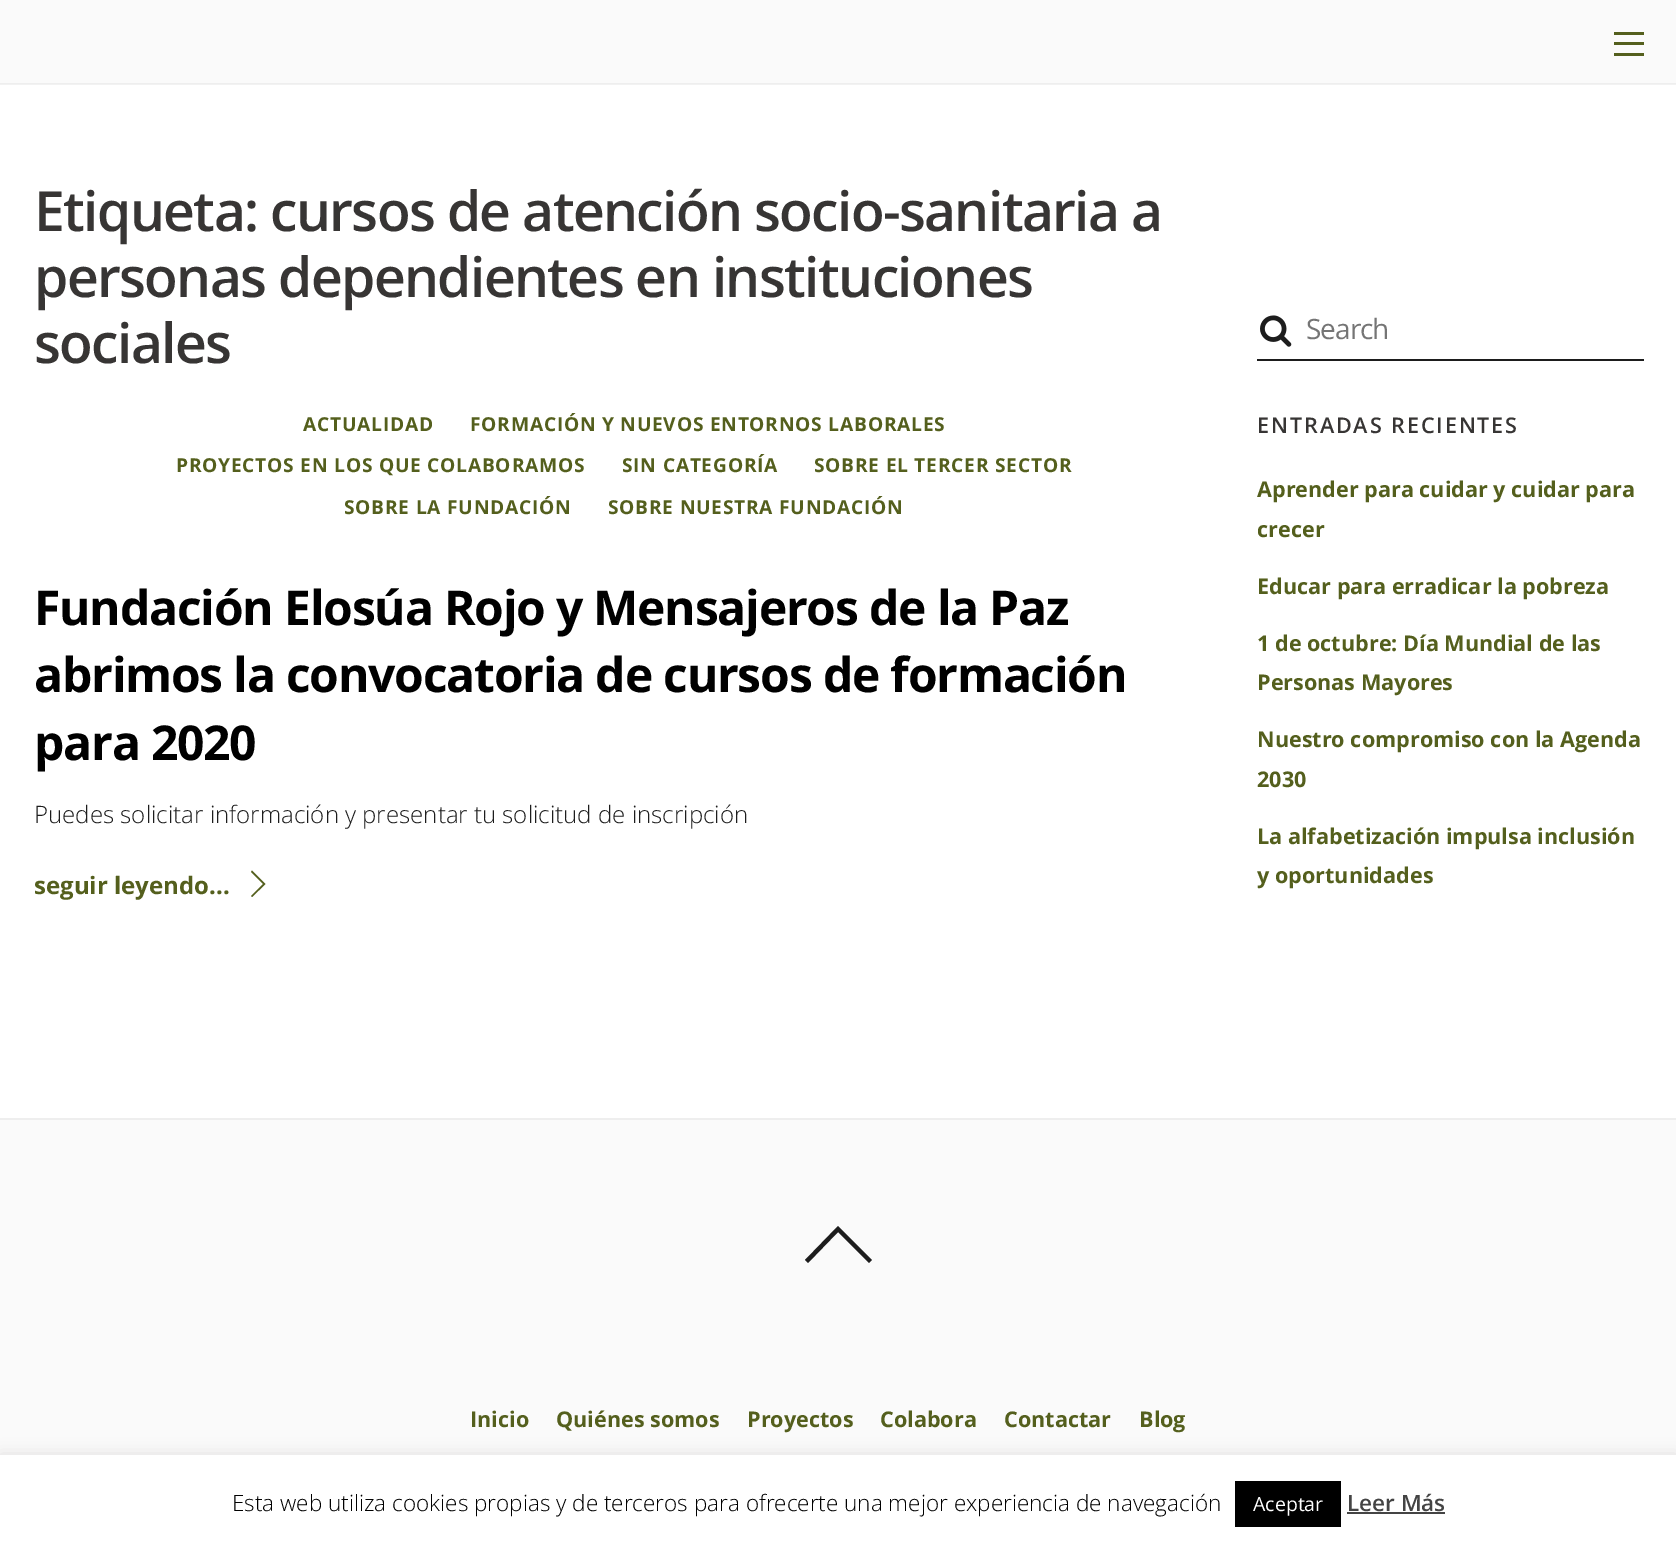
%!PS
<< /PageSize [1676 1545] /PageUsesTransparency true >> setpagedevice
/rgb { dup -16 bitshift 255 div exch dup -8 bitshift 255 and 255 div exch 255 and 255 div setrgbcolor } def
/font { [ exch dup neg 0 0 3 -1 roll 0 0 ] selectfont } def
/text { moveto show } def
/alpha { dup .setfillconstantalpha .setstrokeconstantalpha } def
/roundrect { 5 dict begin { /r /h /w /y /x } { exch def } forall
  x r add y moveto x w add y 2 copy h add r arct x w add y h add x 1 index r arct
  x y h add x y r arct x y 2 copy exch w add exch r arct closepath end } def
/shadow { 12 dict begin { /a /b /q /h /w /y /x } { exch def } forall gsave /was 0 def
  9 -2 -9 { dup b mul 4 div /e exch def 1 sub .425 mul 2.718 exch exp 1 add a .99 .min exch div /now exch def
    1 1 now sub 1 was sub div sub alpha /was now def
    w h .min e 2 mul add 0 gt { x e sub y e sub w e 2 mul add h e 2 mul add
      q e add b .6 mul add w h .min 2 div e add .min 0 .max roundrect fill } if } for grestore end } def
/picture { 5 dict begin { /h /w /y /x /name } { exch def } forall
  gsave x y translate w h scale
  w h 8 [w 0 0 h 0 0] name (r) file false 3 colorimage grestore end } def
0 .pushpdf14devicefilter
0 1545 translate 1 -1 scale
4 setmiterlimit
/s1 { /OpenSans-Light 24 font 16#1D1D1D rgb } def
/s2 { /OpenSans-Bold 24 font 16#545F1D rgb } def
/s3 { /OpenSans-Bold 21.6 font 16#545F1D rgb } def
/s4 { /OpenSans-Light 22.5 font 16#000000 rgb } def
/s5 { /OpenSans-Regular 19.5 font 16#FFFFFF rgb } def
/s6 { /OpenSans-SemiBold 22.5 font 16#444444 rgb } def
16#FFFFFF rgb
0 0 1676 1545 rectfill
16#F2F2F2 rgb
0 84 1676 1 rectfill
16#FAFAFA rgb
0 0 1676 83 rectfill
16#EEEEEE rgb
0 83 1676 1 rectfill
16#545F1D rgb
1614 53 30 3 rectfill
1614 32 30 3 rectfill
1614 42 30 3 rectfill
/OpenSans-SemiBold 55.2 font
16#373534 rgb
34 231 moveto -1.65 0 (Etiqueta: cursos de atención socio-sanitaria a) ashow
34 297 moveto -1.65 0 (personas dependientes en instituciones) ashow
34 363 moveto -1.65 0 (sociales) ashow
/OpenSans-Bold 19.2 font
16#545F1D rgb
303 431 moveto 0.75 0 (ACTUALIDAD) ashow
470 431 moveto 0.75 0 (FORMACIÓN Y NUEVOS ENTORNOS LABORALES) ashow
176 472 moveto 0.75 0 (PROYECTOS EN LOS QUE COLABORAMOS) ashow
622 472 moveto 0.75 0 (SIN CATEGORÍA) ashow
814 472 moveto 0.75 0 (SOBRE EL TERCER SECTOR) ashow
344 514 moveto 0.75 0 (SOBRE LA FUNDACIÓN) ashow
608 514 moveto 0.75 0 (SOBRE NUESTRA FUNDACIÓN) ashow
/OpenSans-Bold 48 font
16#000000 rgb
34 625 moveto -1.2 0 (Fundación Elosúa Rojo y Mensajeros de la Paz) ashow
34 692 moveto -1.2 0 (abrimos la convocatoria de cursos de formación) ashow
34 760 moveto -1.2 0 (para 2020) ashow
s1
(Puedes solicitar información y presentar tu solicitud de inscripción) 34 823 text
s2
(seguir leyendo...) 34 894 text
265.5 884 moveto 252 897 lineto 251 896 lineto 263 884 lineto 251 872 lineto 252 870.5 lineto closepath fill
16#1D1D1D rgb
1257 359 387 2 rectfill
(pic1.raw) 1260 315 32 32 picture
/OpenSans-Regular 28 font
16#757575 rgb
1306 339 moveto -1 0 (Search) ashow
/OpenSans-SemiBold 21.6 font
16#373534 rgb
1257 433 moveto 1.9 0 (ENTRADAS RECIENTES) ashow
s3
(Aprender para cuidar y cuidar para) 1257 497 text
(crecer) 1257 537 text
(Educar para erradicar la pobreza) 1257 594 text
(1 de octubre: Día Mundial de las) 1257 651 text
(Personas Mayores) 1257 690 text
(Nuestro compromiso con la Agenda) 1257 747 text
(2030) 1257 787 text
(La alfabetización impulsa inclusión) 1257 844 text
(y oportunidades) 1257 883 text
16#FAFAFA rgb
0 1120 1676 335 rectfill
16#EEEEEE rgb
0 1118 1676 2 rectfill
16#1D1D1D rgb
872 1260 moveto 869 1263 lineto 838 1232 lineto 808 1263 lineto 805 1260 lineto 838 1226 lineto closepath fill
s3
(Inicio) 470 1427 text
(Quiénes somos) 556 1427 text
(Proyectos) 747 1427 text
(Colabora) 880 1427 text
(Contactar) 1004 1427 text
(Blog) 1139 1427 text
16#ACABAB rgb
0 1454 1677 90 0 7.5 0.3 shadow
16#FFFFFF rgb
0 1455 1676 90 rectfill
s4
(Esta web utiliza cookies propias y de terceros para ofrecerte una mejor experiencia de navegación) 232 1511 text
1235 1481 106 46 rectfill
s5
(Aceptar) 1253 1511 text
s6
(Leer Más) 1347 1511 text
1347 1512 98 2 rectfill
.poppdf14devicefilter showpage
